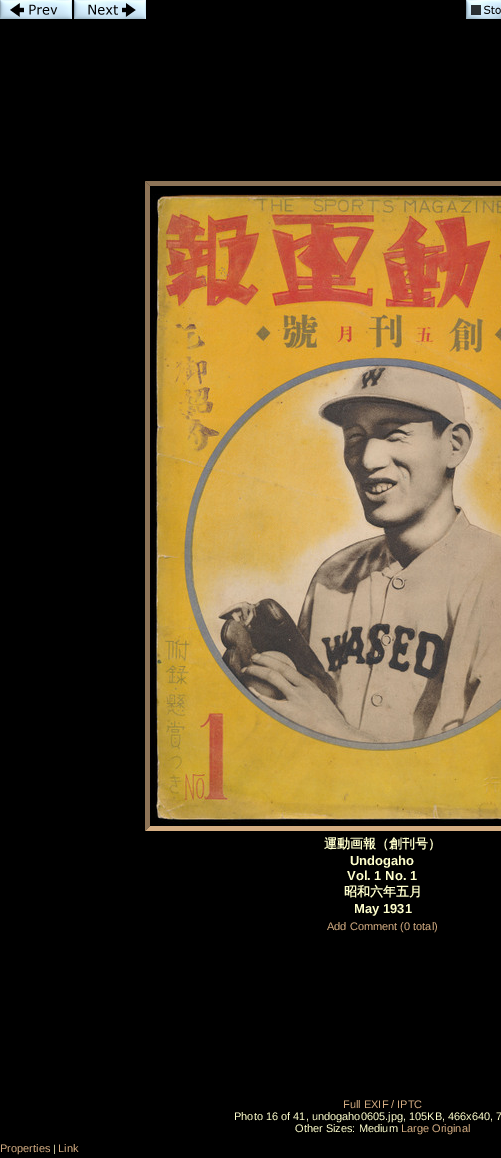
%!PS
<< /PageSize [501 1158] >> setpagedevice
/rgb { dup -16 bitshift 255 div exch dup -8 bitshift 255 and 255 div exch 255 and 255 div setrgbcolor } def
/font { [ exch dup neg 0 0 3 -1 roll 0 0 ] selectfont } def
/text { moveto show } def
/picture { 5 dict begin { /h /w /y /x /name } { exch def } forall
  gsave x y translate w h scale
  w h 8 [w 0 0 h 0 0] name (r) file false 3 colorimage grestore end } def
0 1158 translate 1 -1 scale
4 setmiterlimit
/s1 { /WenQuanYiZenHei-Bold 13 font 16#FFFFCC rgb } def
/s2 { /LiberationSans-Bold 13 font 16#FFFFCC rgb } def
/s3 { /LiberationSans-Regular 11 font 16#D5AE83 rgb } def
/s4 { /LiberationSans-Regular 11 font 16#FFFFCC rgb } def
/s5 { /LiberationSans-Regular 10 font 16#FFFFCC rgb } def
16#000000 rgb
0 0 501 1158 rectfill
(pic1.raw) 0 0 72 19 picture
(pic2.raw) 74 0 72 19 picture
(pic3.raw) 466 0 35 19 picture
16#8E7457 rgb
145 181 moveto 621 181 lineto 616 186 lineto 150 186 lineto closepath fill
16#D5AE83 rgb
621 831 moveto 145 831 lineto 150 826 lineto 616 826 lineto closepath fill
16#8E7457 rgb
145 831 moveto 145 181 lineto 150 186 lineto 150 826 lineto closepath fill
(pic4.raw) 150 194 351 632 picture
s1
(運動画報（創刊号）) 324 848 text
s2
(Undogaho) 350 865 text
(Vol. 1 No. 1) 347 880 text
s1
(昭和六年五月) 344 896 text
s2
(May 1931) 354 913 text
s3
(Add Comment \(0 total\)) 327 930 text
(Full EXIF / IPTC) 343 1108 text
s4
(Photo 16 of 41, undogaho0605.jpg, 105KB, 466x640, 7) 234 1120 text
(Other Sizes: Medium) 295 1132 text
s3
(Large Original) 401 1132 text
(Properties) 0 1152 text
s5
(|) 53 1152 text
s3
(Link) 58 1152 text
showpage
